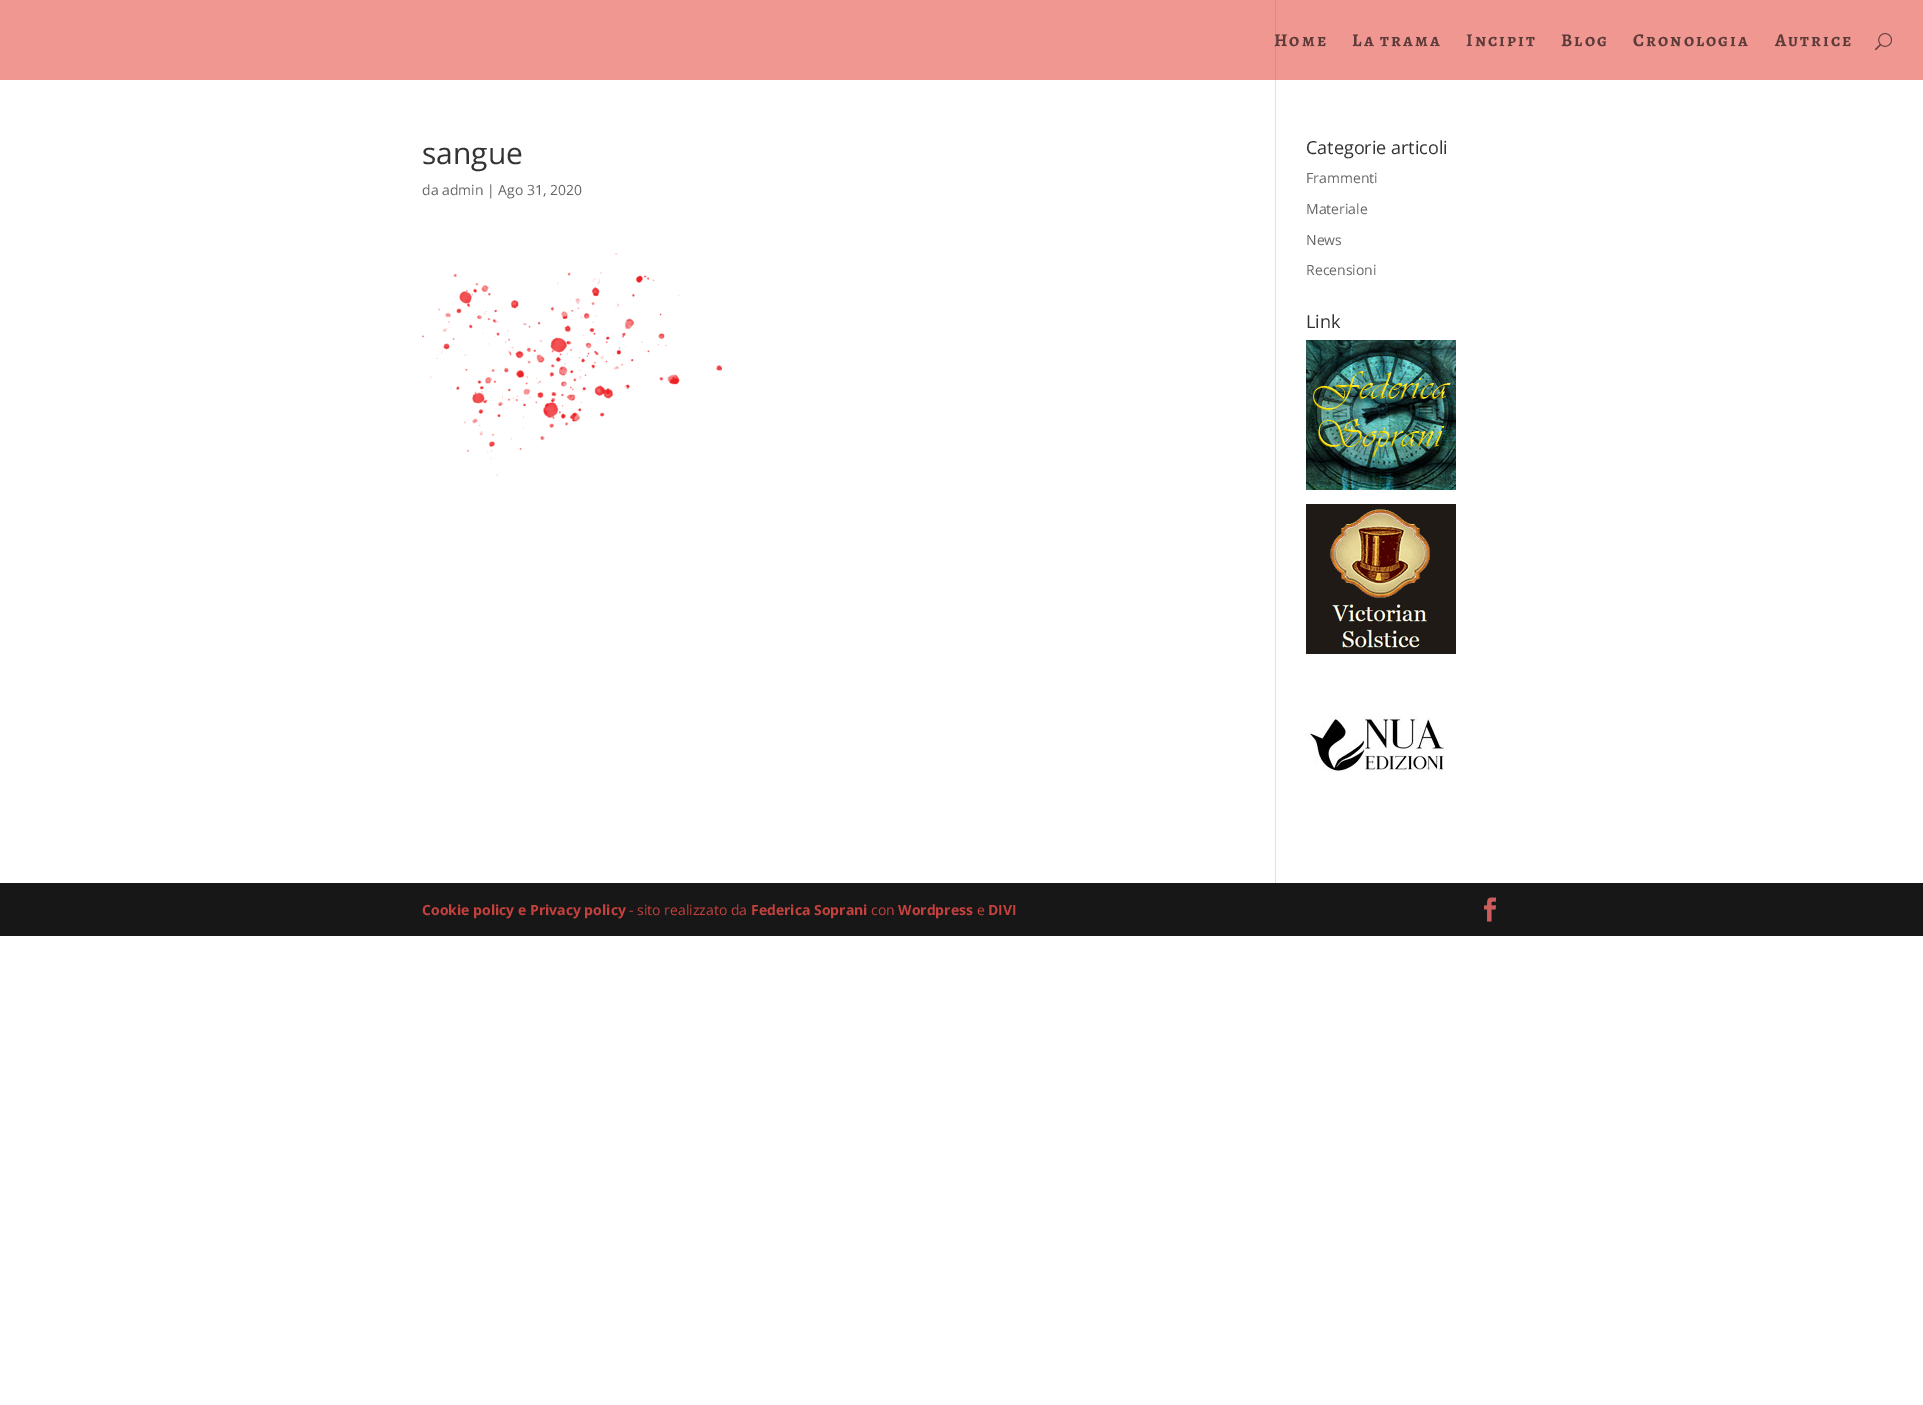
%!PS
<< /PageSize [1923 1405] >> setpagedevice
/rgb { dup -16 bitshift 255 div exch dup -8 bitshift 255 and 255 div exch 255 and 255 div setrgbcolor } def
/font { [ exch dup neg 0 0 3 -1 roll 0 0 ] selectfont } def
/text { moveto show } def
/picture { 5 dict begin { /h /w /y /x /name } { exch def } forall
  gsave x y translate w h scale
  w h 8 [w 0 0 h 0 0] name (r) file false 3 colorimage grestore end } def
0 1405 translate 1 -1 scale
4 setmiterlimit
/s1 { /OpenSans-Regular 30 font 16#333333 rgb } def
/s2 { /OpenSans-Regular 14 font 16#666666 rgb } def
/s3 { /OpenSans-Regular 18 font 16#333333 rgb } def
/s4 { /OpenSans-Bold 14 font 16#C4413D rgb } def
/s5 { /OpenSans-Regular 14 font 16#C4413D rgb } def
16#FFFFFF rgb
0 0 1923 1405 rectfill
16#F09792 rgb
0 0 1923 80 rectfill
16#E18883 rgb
1275 0 1 80 rectfill
/AlegreyaSC-Bold 18 font
16#5D3B39 rgb
1274 46 moveto 2 0 (Home) ashow
1352 46 moveto 2 0 (La trama) ashow
1466 46 moveto 2 0 (Incipit) ashow
1561 46 moveto 2 0 (Blog) ashow
1633 46 moveto 2 0 (Cronologia) ashow
1775 46 moveto 2 0 (Autrice) ashow
(pic1.raw) 1875 33 17 18 picture
16#E2E2E2 rgb
1275 80 1 803 rectfill
s1
(sangue) 422 164 text
s2
(da admin | Ago 31, 2020) 422 195 text
(pic2.raw) 422 253 300 223 picture
s3
(Categorie articoli) 1306 154 text
s2
(Frammenti) 1306 183 text
(Materiale) 1306 214 text
(News) 1306 245 text
(Recensioni) 1306 275 text
s3
(Link) 1306 328 text
(pic3.raw) 1306 340 150 150 picture
(pic4.raw) 1306 504 150 150 picture
(pic5.raw) 1307 716 143 56 picture
16#171717 rgb
0 883 1923 53 rectfill
s4
(Cookie policy e Privacy policy) 422 915 text
s5
(- sito realizzato da) 629 915 text
s4
(Federica Soprani) 751 915 text
s5
(con) 871 915 text
s4
(Wordpress) 898 915 text
s5
(e) 977 915 text
s4
(DIVI) 988 915 text
(pic6.raw) 1484 897 13 25 picture
showpage
